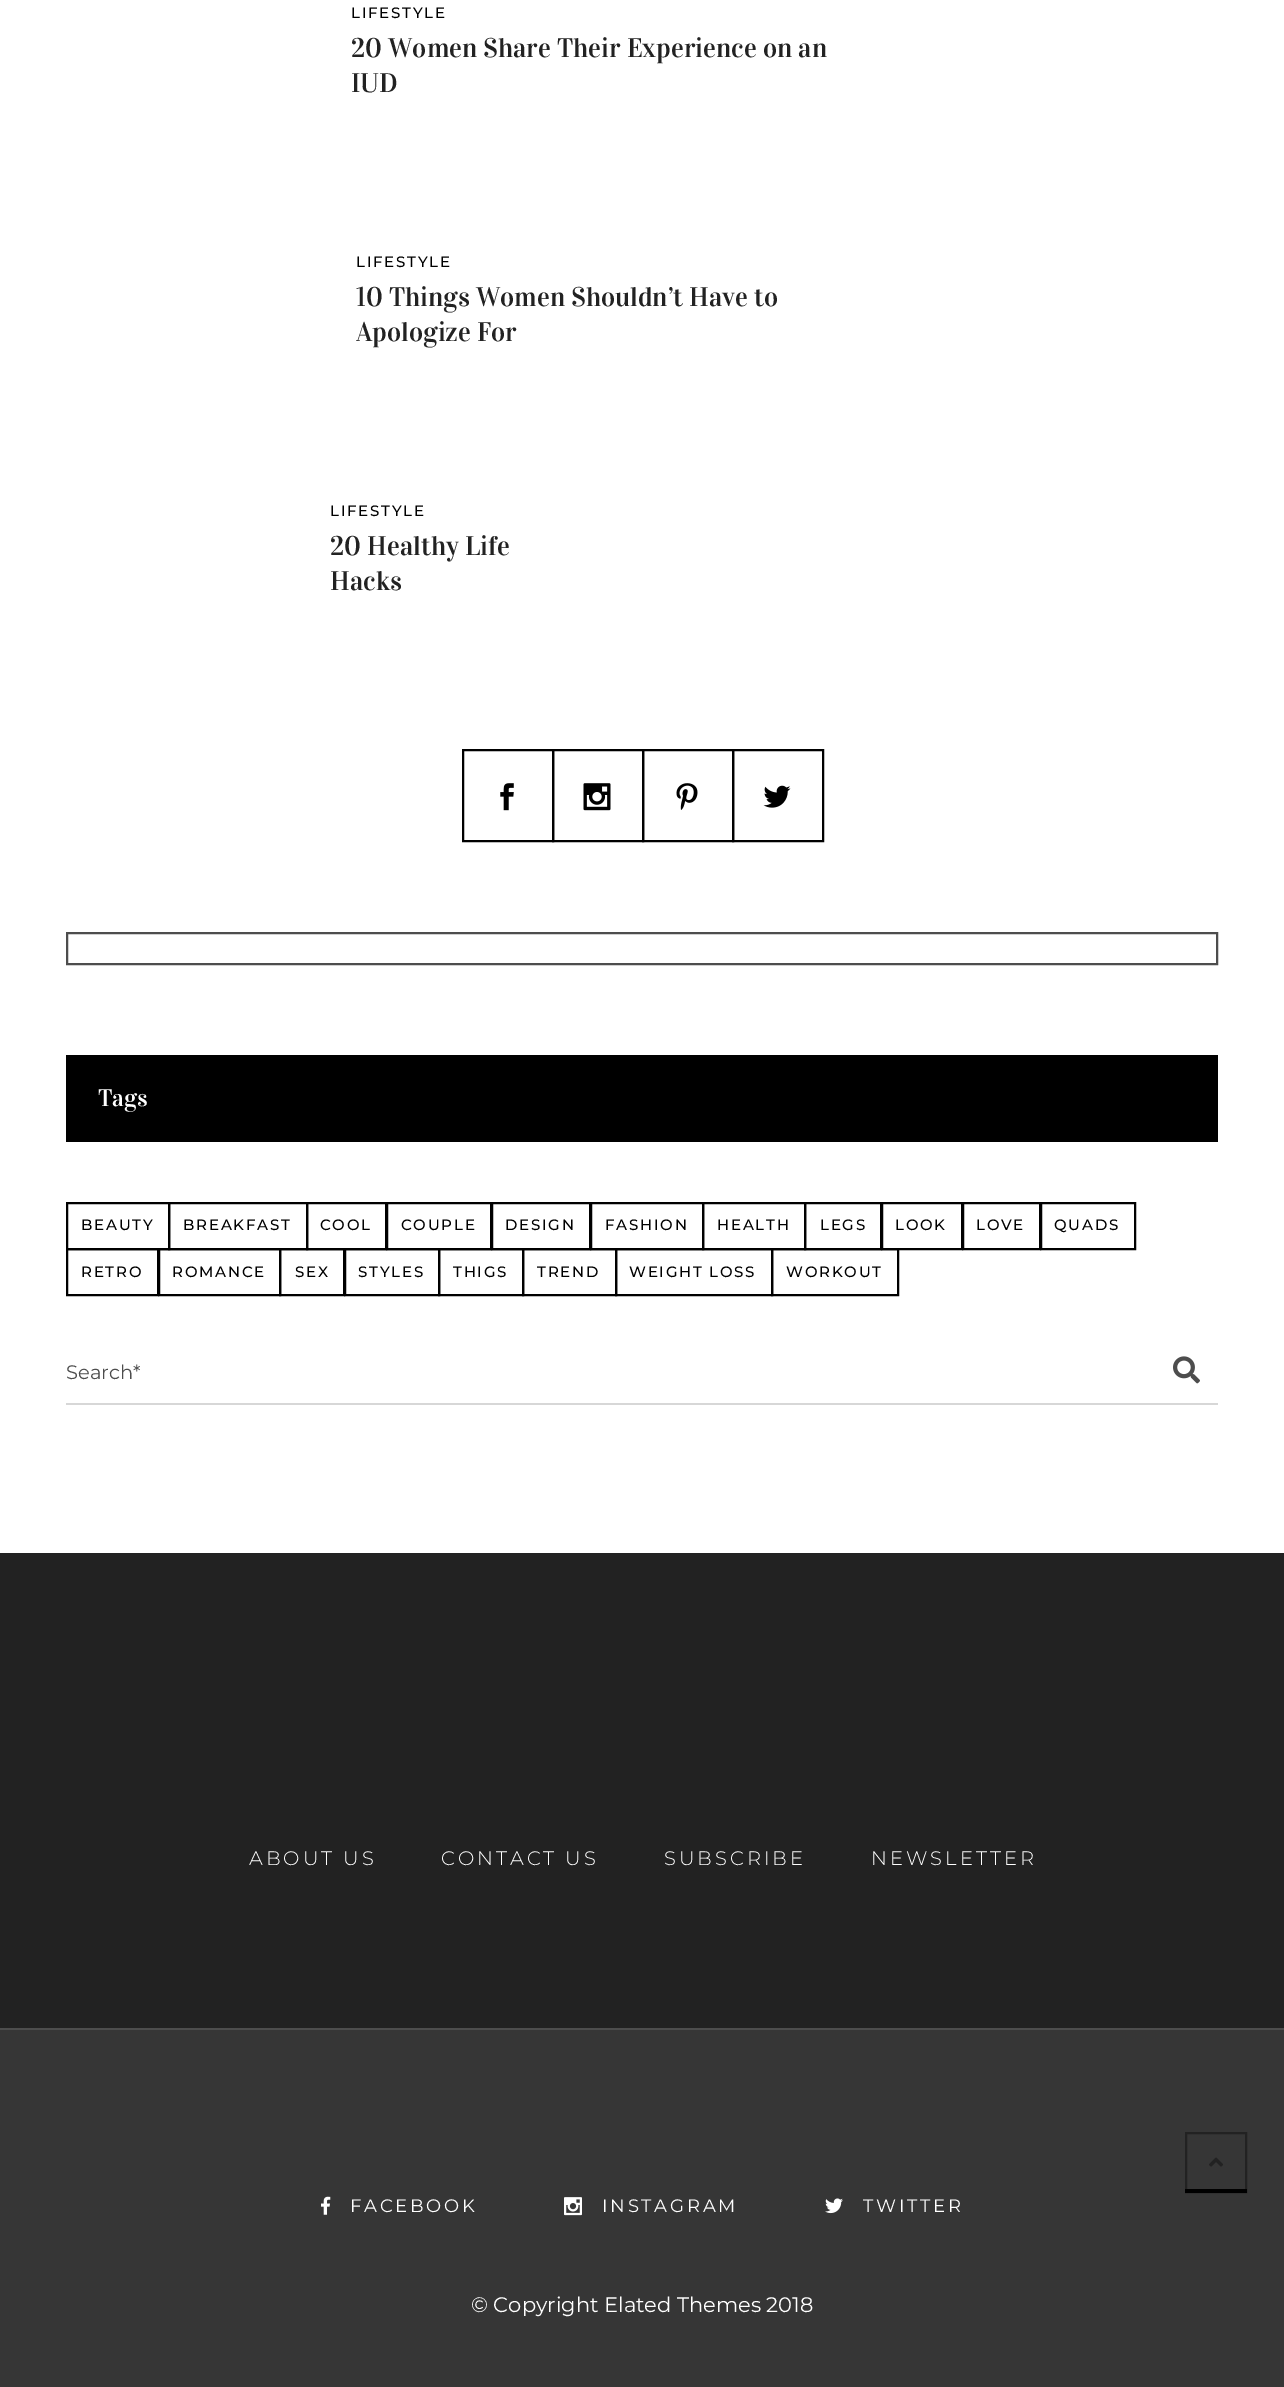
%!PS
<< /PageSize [1284 2387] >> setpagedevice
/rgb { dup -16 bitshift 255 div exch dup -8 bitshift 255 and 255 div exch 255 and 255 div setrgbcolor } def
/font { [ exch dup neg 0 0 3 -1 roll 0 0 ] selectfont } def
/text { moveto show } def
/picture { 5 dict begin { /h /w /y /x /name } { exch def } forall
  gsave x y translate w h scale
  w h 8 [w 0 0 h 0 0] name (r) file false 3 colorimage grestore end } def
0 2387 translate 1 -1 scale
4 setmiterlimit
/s1 { /Vidaloka-Regular 27 font 16#222222 rgb } def
/s2 { /Vidaloka-Regular 24 font 16#FFFFFF rgb } def
/s3 { /Montserrat-Regular 19.5 font 16#4D4D4D rgb } def
/s4 { /Montserrat-Regular 21 font 16#FFFFFF rgb } def
16#FFFFFF rgb
0 0 1284 2387 rectfill
/Montserrat-Medium 15 font
16#000000 rgb
351 18 moveto 1.75 0 (LIFESTYLE) ashow
s1
(20 Women Share Their Experience on an) 351 57 text
(IUD) 351 92 text
/Montserrat-Medium 15 font
16#000000 rgb
356 267 moveto 1.75 0 (LIFESTYLE) ashow
s1
(10 Things Women Shouldn’t Have to) 356 306 text
(Apologize For) 356 341 text
/Montserrat-Medium 15 font
16#000000 rgb
330 516 moveto 1.75 0 (LIFESTYLE) ashow
s1
(20 Healthy Life) 330 555 text
(Hacks) 330 590 text
16#000000 rgb
2 setlinewidth
463 750 90 91 rectstroke
(pic1.raw) 500 783 14 28 picture
553 750 90 91 rectstroke
(pic2.raw) 583 783 28 28 picture
643 750 90 91 rectstroke
(pic3.raw) 676 783 22 27 picture
733 750 90 91 rectstroke
(pic4.raw) 763 785 28 23 picture
16#4D4D4D rgb
67 933 1150 31 rectstroke
16#000000 rgb
66 1055 1152 87 rectfill
s2
(Tags) 98 1106 text
16#000000 rgb
67 1203 102 46 rectstroke
/Montserrat-Medium 15 font
81 1230 moveto 1.75 0 (BEAUTY) ashow
169 1203 138 46 rectstroke
183 1230 moveto 1.75 0 (BREAKFAST) ashow
307 1203 79 46 rectstroke
320 1230 moveto 1.75 0 (COOL) ashow
387 1203 104 46 rectstroke
401 1230 moveto 1.75 0 (COUPLE) ashow
492 1203 98 46 rectstroke
505 1230 moveto 1.75 0 (DESIGN) ashow
591 1203 112 46 rectstroke
605 1230 moveto 1.75 0 (FASHION) ashow
703 1203 102 46 rectstroke
717 1230 moveto 1.75 0 (HEALTH) ashow
805 1203 76 46 rectstroke
820 1230 moveto 1.75 0 (LEGS) ashow
882 1203 80 46 rectstroke
895 1230 moveto 1.75 0 (LOOK) ashow
963 1203 77 46 rectstroke
976 1230 moveto 1.75 0 (LOVE) ashow
1041 1203 94 46 rectstroke
1054 1230 moveto 1.75 0 (QUADS) ashow
67 1249 91 46 rectstroke
81 1277 moveto 1.75 0 (RETRO) ashow
159 1249 121 46 rectstroke
172 1277 moveto 1.75 0 (ROMANCE) ashow
280 1249 64 46 rectstroke
295 1277 moveto 1.75 0 (SEX) ashow
345 1249 94 46 rectstroke
358 1277 moveto 1.75 0 (STYLES) ashow
439 1249 84 46 rectstroke
453 1277 moveto 1.75 0 (THIGS) ashow
523 1249 93 46 rectstroke
537 1277 moveto 1.75 0 (TREND) ashow
616 1249 156 46 rectstroke
629 1277 moveto 1.75 0 (WEIGHT LOSS) ashow
772 1249 126 46 rectstroke
786 1277 moveto 1.75 0 (WORKOUT) ashow
s3
(Search*) 66 1379 text
(pic5.raw) 1173 1356 27 28 picture
16#D7D7D7 rgb
66 1403 1152 2 rectfill
16#222222 rgb
0 1553 1284 475 rectfill
/Montserrat-Light 19.5 font
16#FFFFFF rgb
249 1865 moveto 3 0 (ABOUT US) ashow
441 1865 moveto 3 0 (CONTACT US) ashow
664 1865 moveto 3 0 (SUBSCRIBE) ashow
871 1865 moveto 3 0 (NEWSLETTER) ashow
16#363636 rgb
0 2030 1284 357 rectfill
16#4D4D4D rgb
0 2028 1284 2 rectfill
(pic6.raw) 321 2196 10 19 picture
/Montserrat-Regular 18 font
16#FFFFFF rgb
350 2212 moveto 2.75 0 (FACEBOOK) ashow
(pic7.raw) 564 2197 18 19 picture
602 2212 moveto 2.75 0 (INSTAGRAM) ashow
(pic8.raw) 825 2198 18 16 picture
863 2212 moveto 2.75 0 (TWITTER) ashow
s4
(© Copyright Elated Themes 2018) 471 2312 text
16#222222 rgb
1186 2133 60 59 rectstroke
(pic9.raw) 1209 2157 14 10 picture
16#000000 rgb
1185 2189 62 4 rectfill
showpage
